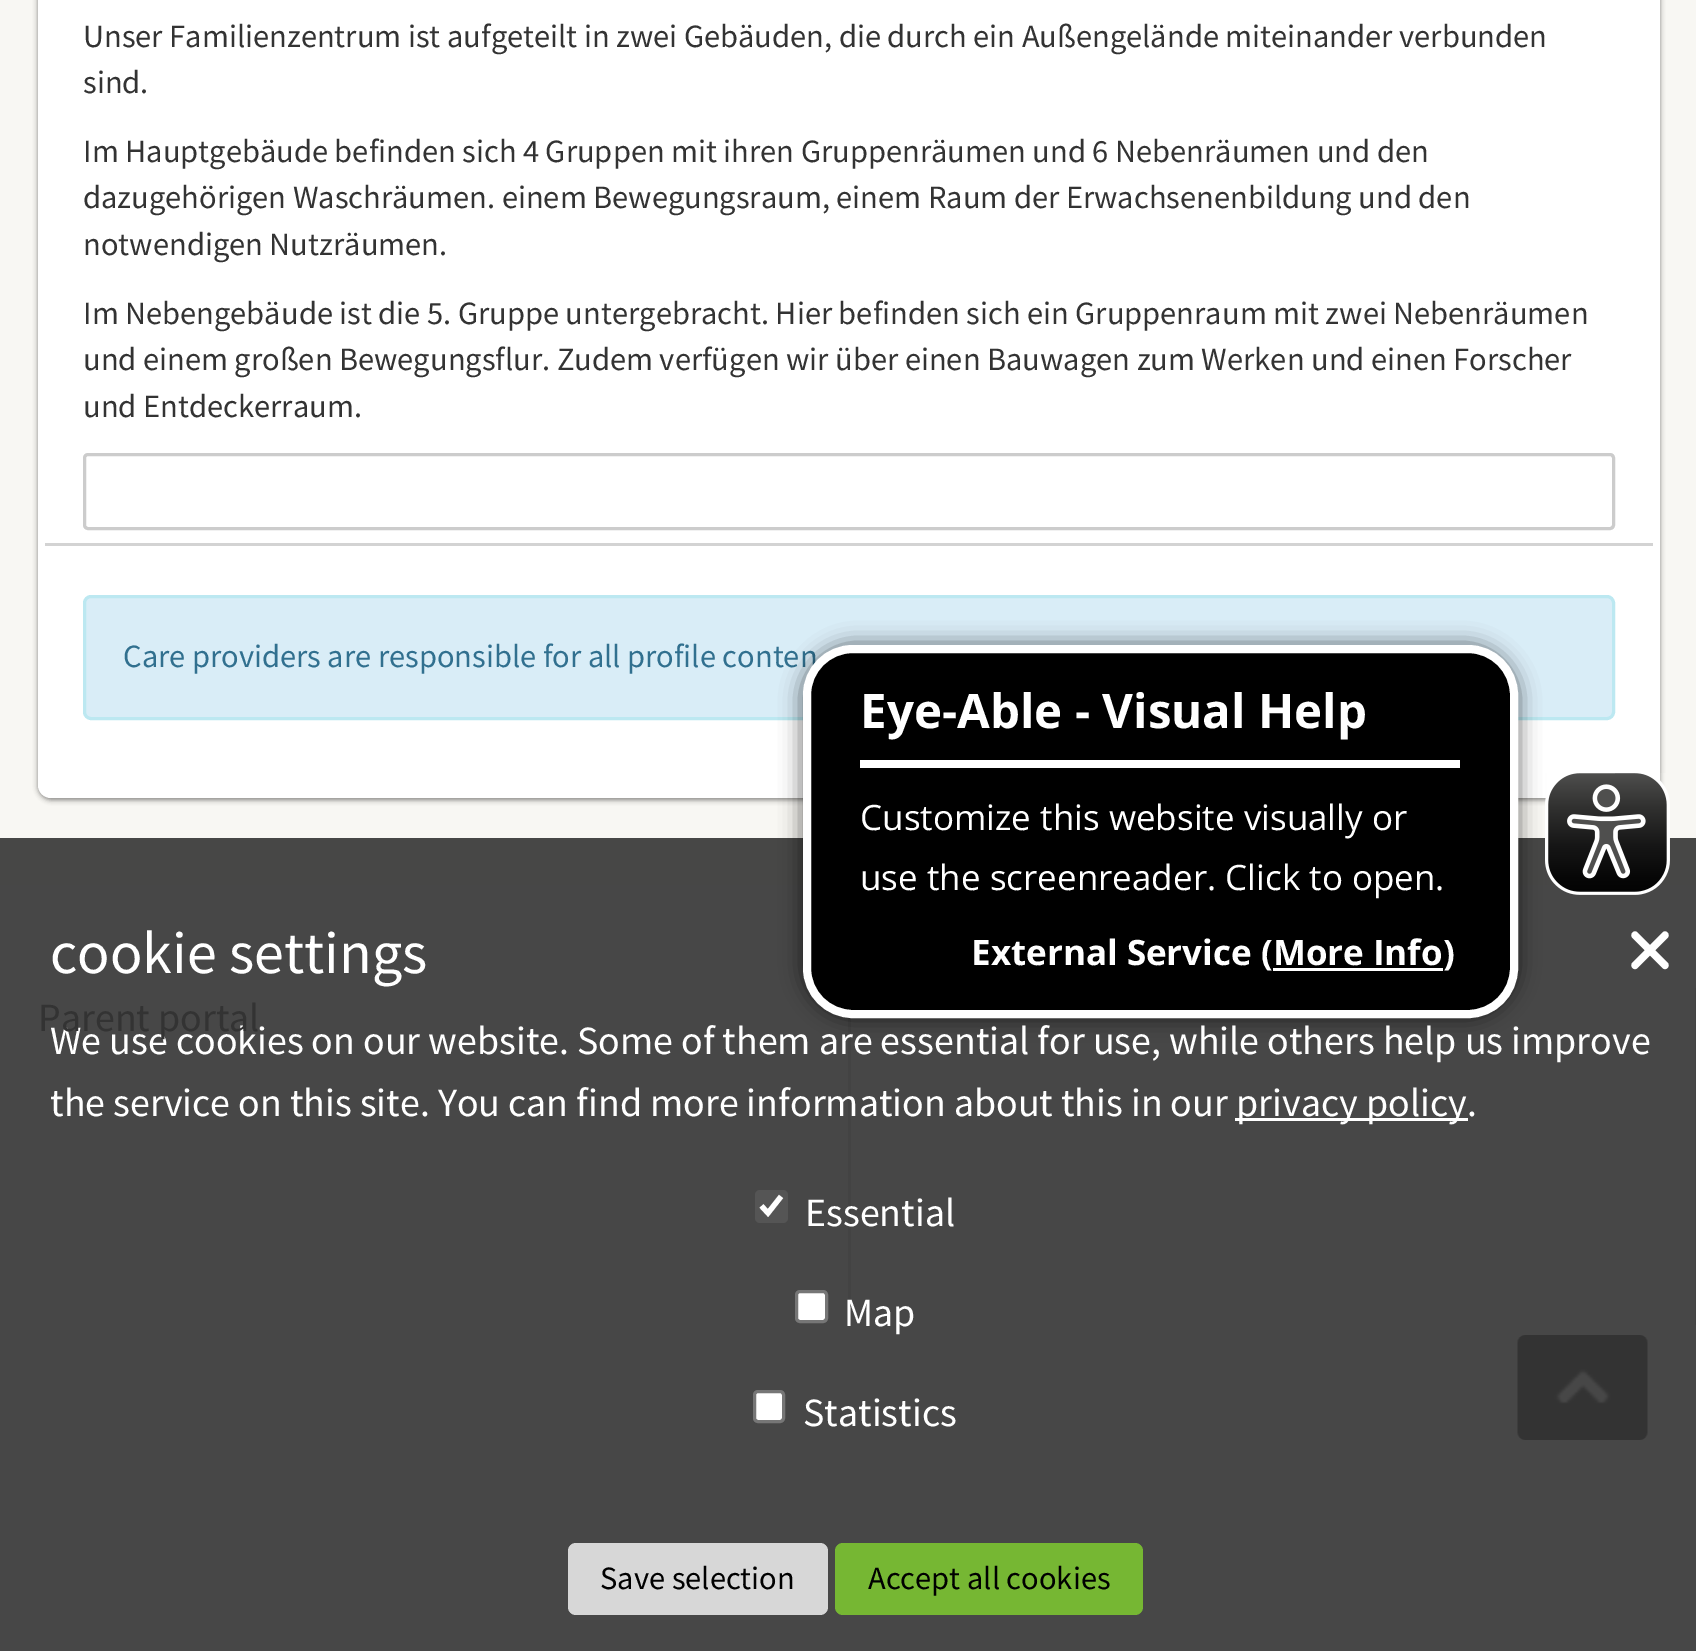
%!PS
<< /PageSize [1696 1651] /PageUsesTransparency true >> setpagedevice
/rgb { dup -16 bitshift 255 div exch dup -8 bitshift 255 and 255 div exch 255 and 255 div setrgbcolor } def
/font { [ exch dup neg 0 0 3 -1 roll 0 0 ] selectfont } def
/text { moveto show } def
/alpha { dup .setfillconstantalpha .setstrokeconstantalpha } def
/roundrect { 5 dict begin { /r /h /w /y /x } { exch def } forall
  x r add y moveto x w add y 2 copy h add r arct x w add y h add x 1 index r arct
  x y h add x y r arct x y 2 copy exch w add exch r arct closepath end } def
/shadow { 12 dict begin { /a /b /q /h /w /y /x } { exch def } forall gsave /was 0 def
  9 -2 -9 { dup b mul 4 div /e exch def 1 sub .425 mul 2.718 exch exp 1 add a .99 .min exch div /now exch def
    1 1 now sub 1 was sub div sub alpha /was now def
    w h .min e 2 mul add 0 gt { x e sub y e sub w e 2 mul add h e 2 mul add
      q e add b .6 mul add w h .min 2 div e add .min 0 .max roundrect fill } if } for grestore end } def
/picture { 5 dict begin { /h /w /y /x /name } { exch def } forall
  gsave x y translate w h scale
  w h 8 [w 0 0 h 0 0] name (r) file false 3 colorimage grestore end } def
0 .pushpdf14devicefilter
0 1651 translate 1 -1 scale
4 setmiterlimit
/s1 { /SourceSansPro-Regular 32.5 font 16#333333 rgb } def
/s2 { /SourceSansPro-Regular 32.5 font 16#31708F rgb } def
/s3 { /OpenSans-Bold 47.5 font 16#FFFFFF rgb } def
/s4 { /OpenSans-Regular 35 font 16#FFFFFF rgb } def
/s5 { /OpenSans-Bold 35 font 16#FFFFFF rgb } def
/s6 { /SourceSansPro-Regular 60 font 16#FFFFFF rgb } def
/s7 { /SourceSansPro-Regular 40 font 16#FFFFFF rgb } def
/s8 { /SourceSansPro-Regular 32.5 font 16#000000 rgb } def
/s9 { /SourceSansPro-Regular 40 font 16#333333 rgb } def
16#F8F7F3 rgb
0 0 1696 1651 rectfill
16#474746 rgb
0 838 1696 47 rectfill
16#000000 rgb
38 -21 1622 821 13 2.5 0.45 shadow
16#FFFFFF rgb
38 -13 1622 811 13 roundrect fill
16#D3D3D3 rgb
45 543 1608 3 rectfill
s1
(Unser Familienzentrum ist aufgeteilt in zwei Gebäuden, die durch ein Außengelände miteinander verbunden) 83 47 text
(sind.) 83 93 text
(Im Hauptgebäude befinden sich 4 Gruppen mit ihren Gruppenräumen und 6 Nebenräumen und den) 83 162 text
(dazugehörigen Waschräumen. einem Bewegungsraum, einem Raum der Erwachsenenbildung und den) 83 208 text
(notwendigen Nutzräumen.) 83 255 text
(Im Nebengebäude ist die 5. Gruppe untergebracht. Hier befinden sich ein Gruppenraum mit zwei Nebenräumen) 83 324 text
(und einem großen Bewegungsflur. Zudem verfügen wir über einen Bauwagen zum Werken und einen Forscher) 83 370 text
(und Entdeckerraum.) 83 417 text
16#CCCCCC rgb
3 setlinewidth
84.5 454.5 1529 74 3.5 roundrect stroke
16#D9EDF7 rgb
84.5 596.5 1529 122 6.5 roundrect gsave fill grestore
16#BCE8F1 rgb
stroke
s2
(Care providers are responsible for all profile conten) 123 667 text
16#474747 rgb
0 885 1696 766 rectfill
16#434343 rgb
848 1017 3 308 rectfill
16#000000 rgb
800 643 720 377 53 10 0.5 shadow
807 649 707 365 46 roundrect gsave fill grestore
16#FFFFFF rgb
8 setlinewidth
stroke
860 760 600 8 rectfill
s3
(Eye-Able - Visual Help) 860 728 text
s4
(Customize this website visually or) 860 830 text
(use the screenreader. Click to open.) 860 890 text
s5
(External Service \(More Info\)) 971 965 text
1273 968 170 3 rectfill
(pic1.raw) 1545 773 125 122 picture
s6
(cookie settings) 50 973 text
s7
(We use cookies on our website. Some of them are essential for use, while others help us improve) 50 1054 text
(the service on this site. You can find more information about this in our) 50 1116 text
1235 1118 233 3 rectfill
(privacy policy.) 1236 1116 text
16#555555 rgb
755 1190 33 33 5 roundrect fill
16#FFFFFF rgb
5.2 setlinewidth
761.5 1206 moveto 768 1213 lineto 781 1196.5 lineto stroke
(Essential) 805 1226 text
796.5 1291.5 30 30 3.5 roundrect gsave fill grestore
16#767676 rgb
3 setlinewidth
stroke
s7
(Map) 844 1326 text
754.5 1391.5 29 30 3.5 roundrect gsave fill grestore
16#767676 rgb
stroke
s7
(Statistics) 803 1426 text
16#D7D7D7 rgb
568 1543 260 72 8 roundrect fill
s8
(Save selection) 600 1589 text
16#76B733 rgb
835 1543 308 72 8 roundrect fill
s8
(Accept all cookies) 868 1589 text
16#FFFFFF rgb
1637.5 932.5 moveto 1667.5 962.5 lineto 1669 964 1669 966.5 1667.5 968 curveto 1666 969.5 1664 969.5 1662.5 968 curveto 1632.5 938 lineto 1631 936.5 1631 934 1632.5 932.5 curveto 1634 931 1636 931 1637.5 932.5 curveto closepath fill
1632.5 962.5 moveto 1662.5 932.5 lineto 1664 931 1666 931 1667.5 932.5 curveto 1669 934 1669 936.5 1667.5 938 curveto 1637.5 968 lineto 1636 969.5 1634 969.5 1632.5 968 curveto 1631 966.5 1631 964 1632.5 962.5 curveto closepath fill
s9
(Parent portal) 38 1031 text
16#434343 rgb
1695 988 1 337 rectfill
(pic2.raw) 1517 1335 131 105 picture
.poppdf14devicefilter showpage
